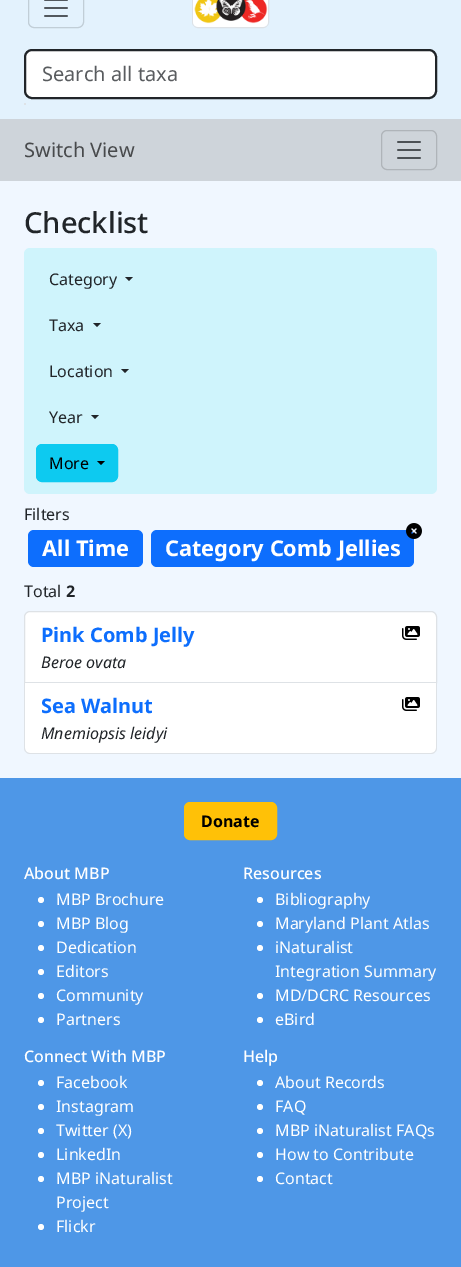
%!PS
<< /PageSize [461 1267] >> setpagedevice
/rgb { dup -16 bitshift 255 div exch dup -8 bitshift 255 and 255 div exch 255 and 255 div setrgbcolor } def
/font { [ exch dup neg 0 0 3 -1 roll 0 0 ] selectfont } def
/text { moveto show } def
/circle { newpath 0 360 arc closepath } def
/roundrect { 5 dict begin { /r /h /w /y /x } { exch def } forall
  x r add y moveto x w add y 2 copy h add r arct x w add y h add x 1 index r arct
  x y h add x y r arct x y 2 copy exch w add exch r arct closepath end } def
/picture { 5 dict begin { /h /w /y /x /name } { exch def } forall
  gsave x y translate w h scale
  w h 8 [w 0 0 h 0 0] name (r) file false 3 colorimage grestore end } def
0 1267 translate 1 -1 scale
4 setmiterlimit
/s1 { /NotoSans-Regular 20 font 16#595C5F rgb } def
/s2 { /NotoSans-Regular 20 font 16#484A4C rgb } def
/s3 { /NotoSans-Medium 29 font 16#212529 rgb } def
/s4 { /NotoSans-Regular 16 font 16#212529 rgb } def
/s5 { /NotoSans-Regular 16 font 16#000000 rgb } def
/s6 { /NotoSans-Bold 21.75 font 16#FFFFFF rgb } def
/s7 { /NotoSans-Bold 16 font 16#212529 rgb } def
/s8 { /NotoSans-Bold 20 font 16#0D6EFD rgb } def
/s9 { /NotoSans-Italic 16 font 16#212529 rgb } def
/s10 { /NotoSans-Bold 16 font 16#000000 rgb } def
/s11 { /NotoSans-Medium 16 font 16#FFFFFF rgb } def
/s12 { /NotoSans-Regular 16 font 16#FFFFFF rgb } def
16#E3F2FD rgb
0 0 461 1267 rectfill
16#C1CED7 rgb
28.5 -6.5 55 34 5.5 roundrect stroke
(pic1.raw) 44 0 24 17 picture
16#DEE2E6 rgb
192.5 -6.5 76 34 5.5 roundrect stroke
(pic2.raw) 193 0 75 27 picture
16#FFFFFF rgb
25 50 411 48 7 roundrect gsave fill grestore
16#212529 rgb
2 setlinewidth
stroke
s1
(Search all taxa) 42 81 text
16#DEE2E6 rgb
25 104 1 circle fill
16#CED4DA rgb
0 119 461 62 rectfill
s2
(Switch View) 24 157 text
16#AFB4B9 rgb
1 setlinewidth
381.5 130.5 55 39 5.5 roundrect stroke
(pic3.raw) 397 141 24 18 picture
16#F0F7FF rgb
0 181 461 597 rectfill
s3
(Checklist) 24 233 text
16#CFF4FC rgb
24 248 413 246 6 roundrect fill
s4
(Category) 49 285 text
125 277 moveto 133 277 lineto 129 281 lineto closepath fill
(Taxa) 49 331 text
93 323 moveto 101 323 lineto 97 327 lineto closepath fill
(Location) 49 377 text
121 369 moveto 129 369 lineto 125 373 lineto closepath fill
(Year) 49 423 text
91 415 moveto 99 415 lineto 95 419 lineto closepath fill
16#0DCAF0 rgb
36.5 444.5 81 37 5.5 roundrect gsave fill grestore
stroke
s5
(More) 49 469 text
97 461 moveto 105 461 lineto 101 465 lineto closepath fill
s4
(Filters) 24 520 text
16#0D6EFD rgb
28 530 115 37 6 roundrect fill
s6
(All Time) 42 556 text
16#0D6EFD rgb
151 530 263 37 6 roundrect fill
(pic4.raw) 406 523 16 16 picture
s6
(Category Comb Jellies) 165 556 text
s4
(Total) 24 597 text
s7
(2) 66 597 text
16#FFFFFF rgb
30 611.5 moveto 431 611.5 lineto 434 611.5 436.5 614 436.5 617 curveto 436.5 682.5 lineto 24.5 682.5 lineto 24.5 617 lineto 24.5 614 27 611.5 30 611.5 curveto closepath gsave fill grestore
16#DEE2E6 rgb
stroke
s8
(Pink Comb Jelly) 41 642 text
(pic5.raw) 402 626 18 14 picture
s9
(Beroe ovata) 41 668 text
16#FFFFFF rgb
25 683 moveto 436 683 lineto 436 748 lineto 436 751 434 753 431 753 curveto 30 753 lineto 27 753 25 751 25 748 curveto closepath fill
16#DEE2E6 rgb
24 683 moveto 437 683 lineto 437 748 lineto 437 751 434 754 431 754 curveto 30 754 lineto 27 754 24 751 24 748 curveto closepath 25 683 moveto 436 683 lineto 436 748 lineto 436 751 434 753 431 753 curveto 30 753 lineto 27 753 25 751 25 748 curveto closepath eofill
s8
(Sea Walnut) 41 713 text
(pic5.raw) 402 697 18 14 picture
s9
(Mnemiopsis leidyi) 41 739 text
16#4E97E7 rgb
0 778 461 489 rectfill
16#FFC107 rgb
184.5 802.5 92 37 5.5 roundrect gsave fill grestore
stroke
s10
(Donate) 201 827 text
s11
(About MBP) 24 879 text
41 900 3 circle fill
s12
(MBP Brochure) 56 905 text
41 924 3 circle fill
(MBP Blog) 56 929 text
41 948 3 circle fill
(Dedication) 56 953 text
41 972 3 circle fill
(Editors) 56 977 text
41 996 3 circle fill
(Community) 56 1001 text
41 1020 3 circle fill
(Partners) 56 1025 text
s11
(Resources) 243 879 text
260 900 3 circle fill
s12
(Bibliography) 275 905 text
260 924 3 circle fill
(Maryland Plant Atlas) 275 929 text
260 948 3 circle fill
(iNaturalist) 275 953 text
(Integration Summary) 275 977 text
260 996 3 circle fill
(MD/DCRC Resources) 275 1001 text
260 1020 3 circle fill
(eBird) 275 1025 text
s11
(Connect With MBP) 24 1062 text
41 1083 3 circle fill
s12
(Facebook) 56 1088 text
41 1107 3 circle fill
(Instagram) 56 1112 text
41 1131 3 circle fill
(Twitter \(X\)) 56 1136 text
41 1155 3 circle fill
(LinkedIn) 56 1160 text
41 1179 3 circle fill
(MBP iNaturalist) 56 1184 text
(Project) 56 1208 text
41 1227 3 circle fill
(Flickr) 56 1232 text
s11
(Help) 243 1062 text
260 1083 3 circle fill
s12
(About Records) 275 1088 text
260 1107 3 circle fill
(FAQ) 275 1112 text
260 1131 3 circle fill
(MBP iNaturalist FAQs) 275 1136 text
260 1155 3 circle fill
(How to Contribute) 275 1160 text
260 1179 3 circle fill
(Contact) 275 1184 text
showpage
